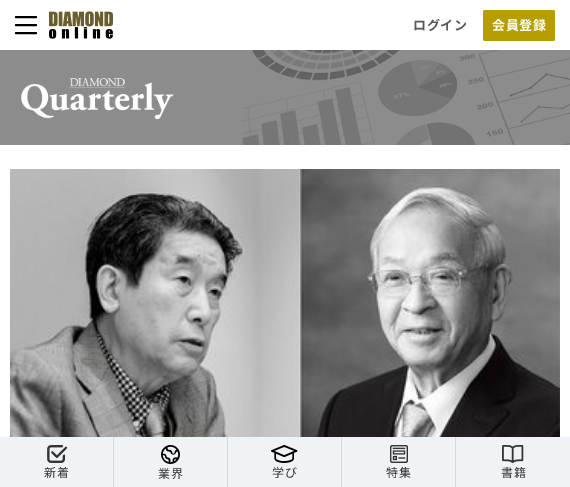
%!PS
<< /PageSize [570 487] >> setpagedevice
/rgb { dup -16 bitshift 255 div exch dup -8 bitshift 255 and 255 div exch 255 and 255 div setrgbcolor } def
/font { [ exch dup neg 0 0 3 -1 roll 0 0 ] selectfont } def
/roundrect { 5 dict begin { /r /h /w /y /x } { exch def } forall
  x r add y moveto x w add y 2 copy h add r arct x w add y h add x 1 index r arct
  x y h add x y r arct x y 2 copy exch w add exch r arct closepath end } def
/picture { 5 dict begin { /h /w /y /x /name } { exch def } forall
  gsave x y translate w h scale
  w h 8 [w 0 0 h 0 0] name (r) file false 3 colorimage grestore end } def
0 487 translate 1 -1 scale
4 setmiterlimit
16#FFFFFF rgb
0 0 570 487 rectfill
16#000000 rgb
2 setlinewidth
1 setlinecap
16 17 moveto 36 17 lineto 16 25 moveto 36 25 lineto 16 33 moveto 36 33 lineto stroke
(pic1.raw) 49 11 64 28 picture
/NotoSansJP-Bold 13 font
16#595959 rgb
413 30 moveto 0.5 0 (ログイン) ashow
16#B69E00 rgb
483 10 72 31 2 roundrect fill
16#FFFFFF rgb
492 30 moveto 0.5 0 (会員登録) ashow
(pic2.raw) 0 50 570 95 picture
(pic3.raw) 10 169 550 268 picture
16#F0F3F5 rgb
0 437 570 50 rectfill
16#D8D8D8 rgb
113 437 1 50 rectfill
(pic4.raw) 47 445 21 18 picture
/NotoSansJP-Regular 12 font
16#333333 rgb
44 477 moveto 0.5 0 (新着) ashow
16#D8D8D8 rgb
227 437 1 50 rectfill
(pic5.raw) 161 445 19 19 picture
16#333333 rgb
158 478 moveto 0.5 0 (業界) ashow
16#D8D8D8 rgb
341 437 1 50 rectfill
(pic6.raw) 271 445 27 18 picture
16#333333 rgb
272 477 moveto 0.5 0 (学び) ashow
16#D8D8D8 rgb
455 437 1 50 rectfill
(pic7.raw) 390 445 18 18 picture
16#333333 rgb
386 477 moveto 0.5 0 (特集) ashow
(pic8.raw) 502 445 22 18 picture
501 477 moveto 0.5 0 (書籍) ashow
showpage
